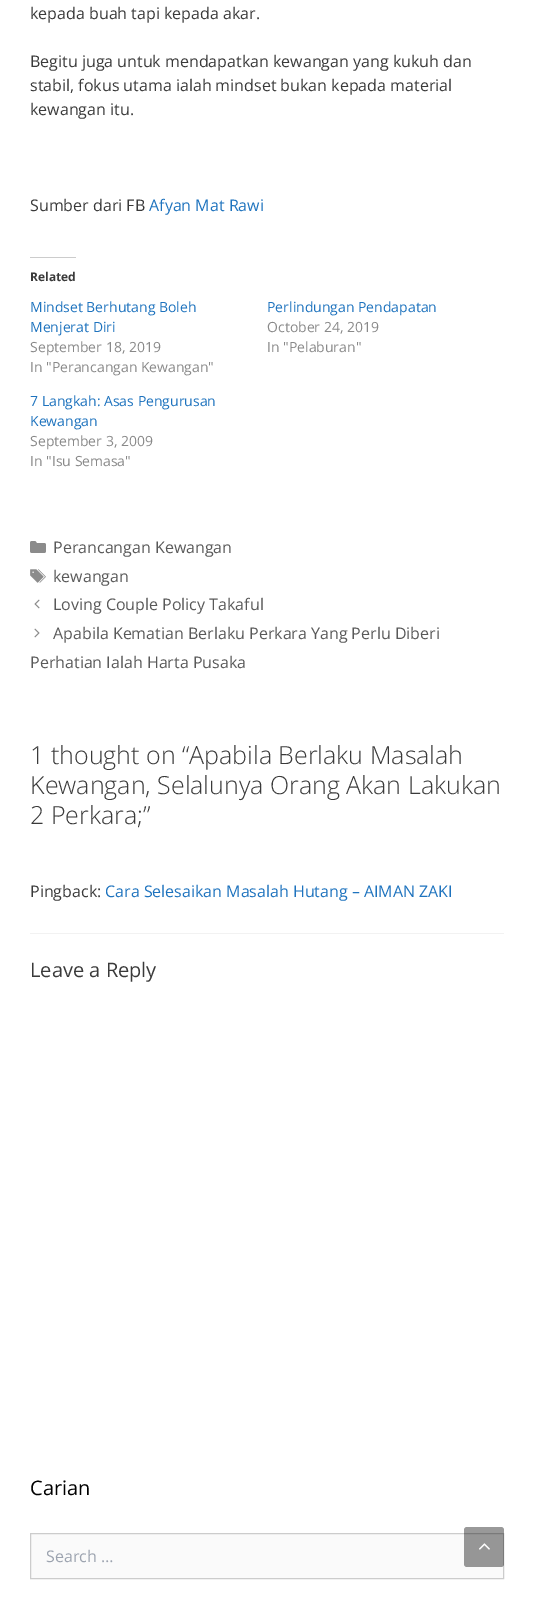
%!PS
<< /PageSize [534 1597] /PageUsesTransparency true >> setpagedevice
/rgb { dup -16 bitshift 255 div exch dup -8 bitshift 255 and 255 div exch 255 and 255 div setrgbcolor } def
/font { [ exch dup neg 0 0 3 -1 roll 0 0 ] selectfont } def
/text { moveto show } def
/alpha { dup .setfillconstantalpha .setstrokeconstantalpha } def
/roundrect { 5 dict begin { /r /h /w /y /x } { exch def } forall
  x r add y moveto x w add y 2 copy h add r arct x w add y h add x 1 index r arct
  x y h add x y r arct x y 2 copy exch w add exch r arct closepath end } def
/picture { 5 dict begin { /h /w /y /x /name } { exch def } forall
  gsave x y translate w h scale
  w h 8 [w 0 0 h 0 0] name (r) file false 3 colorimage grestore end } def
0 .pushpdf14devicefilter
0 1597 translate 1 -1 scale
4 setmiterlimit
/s1 { /OpenSans-Regular 16 font 16#3A3A3A rgb } def
/s2 { /OpenSans-Regular 16 font 16#1E73BE rgb } def
/s3 { /OpenSans-Bold 12 font 16#3A3A3A rgb } def
/s4 { /OpenSans-Regular 14 font 16#1E73BE rgb } def
/s5 { /OpenSans-Regular 14 font 16#898989 rgb } def
/s6 { /OpenSans-Regular 16 font 16#595959 rgb } def
/s7 { /OpenSans-Light 25 font 16#3A3A3A rgb } def
/s8 { /OpenSans-Regular 20 font 16#3A3A3A rgb } def
/s9 { /OpenSans-Regular 20 font 16#000000 rgb } def
/s10 { /OpenSans-Regular 16 font 16#9CA3AF rgb } def
16#FFFFFF rgb
0 0 534 1597 rectfill
s1
(kepada buah tapi kepada akar.) 30 19 text
(Begitu juga untuk mendapatkan kewangan yang kukuh dan) 30 67 text
(stabil, fokus utama ialah mindset bukan kepada material) 30 91 text
(kewangan itu.) 30 115 text
(Sumber dari FB) 30 211 text
s2
(Afyan Mat Rawi) 149 211 text
16#CCCCCC rgb
30 257 46 1 rectfill
s3
(Related) 30 281 text
s4
(Mindset Berhutang Boleh) 30 312 text
(Menjerat Diri) 30 332 text
s5
(September 18, 2019) 30 352 text
(In "Perancangan Kewangan") 30 372 text
s4
(Perlindungan Pendapatan) 267 312 text
s5
(October 24, 2019) 267 332 text
(In "Pelaburan") 267 352 text
s4
(7 Langkah: Asas Pengurusan) 30 406 text
(Kewangan) 30 426 text
s5
(September 3, 2009) 30 446 text
(In "Isu Semasa") 30 466 text
(pic1.raw) 30 541 16 12 picture
s6
(Perancangan Kewangan) 53 553 text
(pic2.raw) 30 569 16 14 picture
(kewangan) 53 582 text
(pic3.raw) 34 599 6 10 picture
(Loving Couple Policy Takaful) 53 610 text
(pic4.raw) 34 628 6 10 picture
(Apabila Kematian Berlaku Perkara Yang Perlu Diberi) 53 639 text
(Perhatian Ialah Harta Pusaka) 30 668 text
s7
(1 thought on “Apabila Berlaku Masalah) 30 764 text
(Kewangan, Selalunya Orang Akan Lakukan) 30 794 text
(2 Perkara;”) 30 824 text
16#F2F2F2 rgb
30 933 474 1 rectfill
s1
(Pingback:) 30 897 text
s2
(Cara Selesaikan Masalah Hutang – AIMAN ZAKI) 105 897 text
s8
(Leave a Reply) 30 977 text
s9
(Carian) 30 1495 text
16#FAFAFA rgb
30.5 1533.5 moveto 503.5 1533.5 lineto 503.5 1578.5 lineto 30.5 1578.5 lineto closepath gsave fill grestore
16#CCCCCC rgb
stroke
s10
(Search …) 46 1562 text
0.4 alpha
16#000000 rgb
464 1527 40 40 3 roundrect fill
1 alpha
(pic5.raw) 479 1543 11 7 picture
.poppdf14devicefilter showpage
